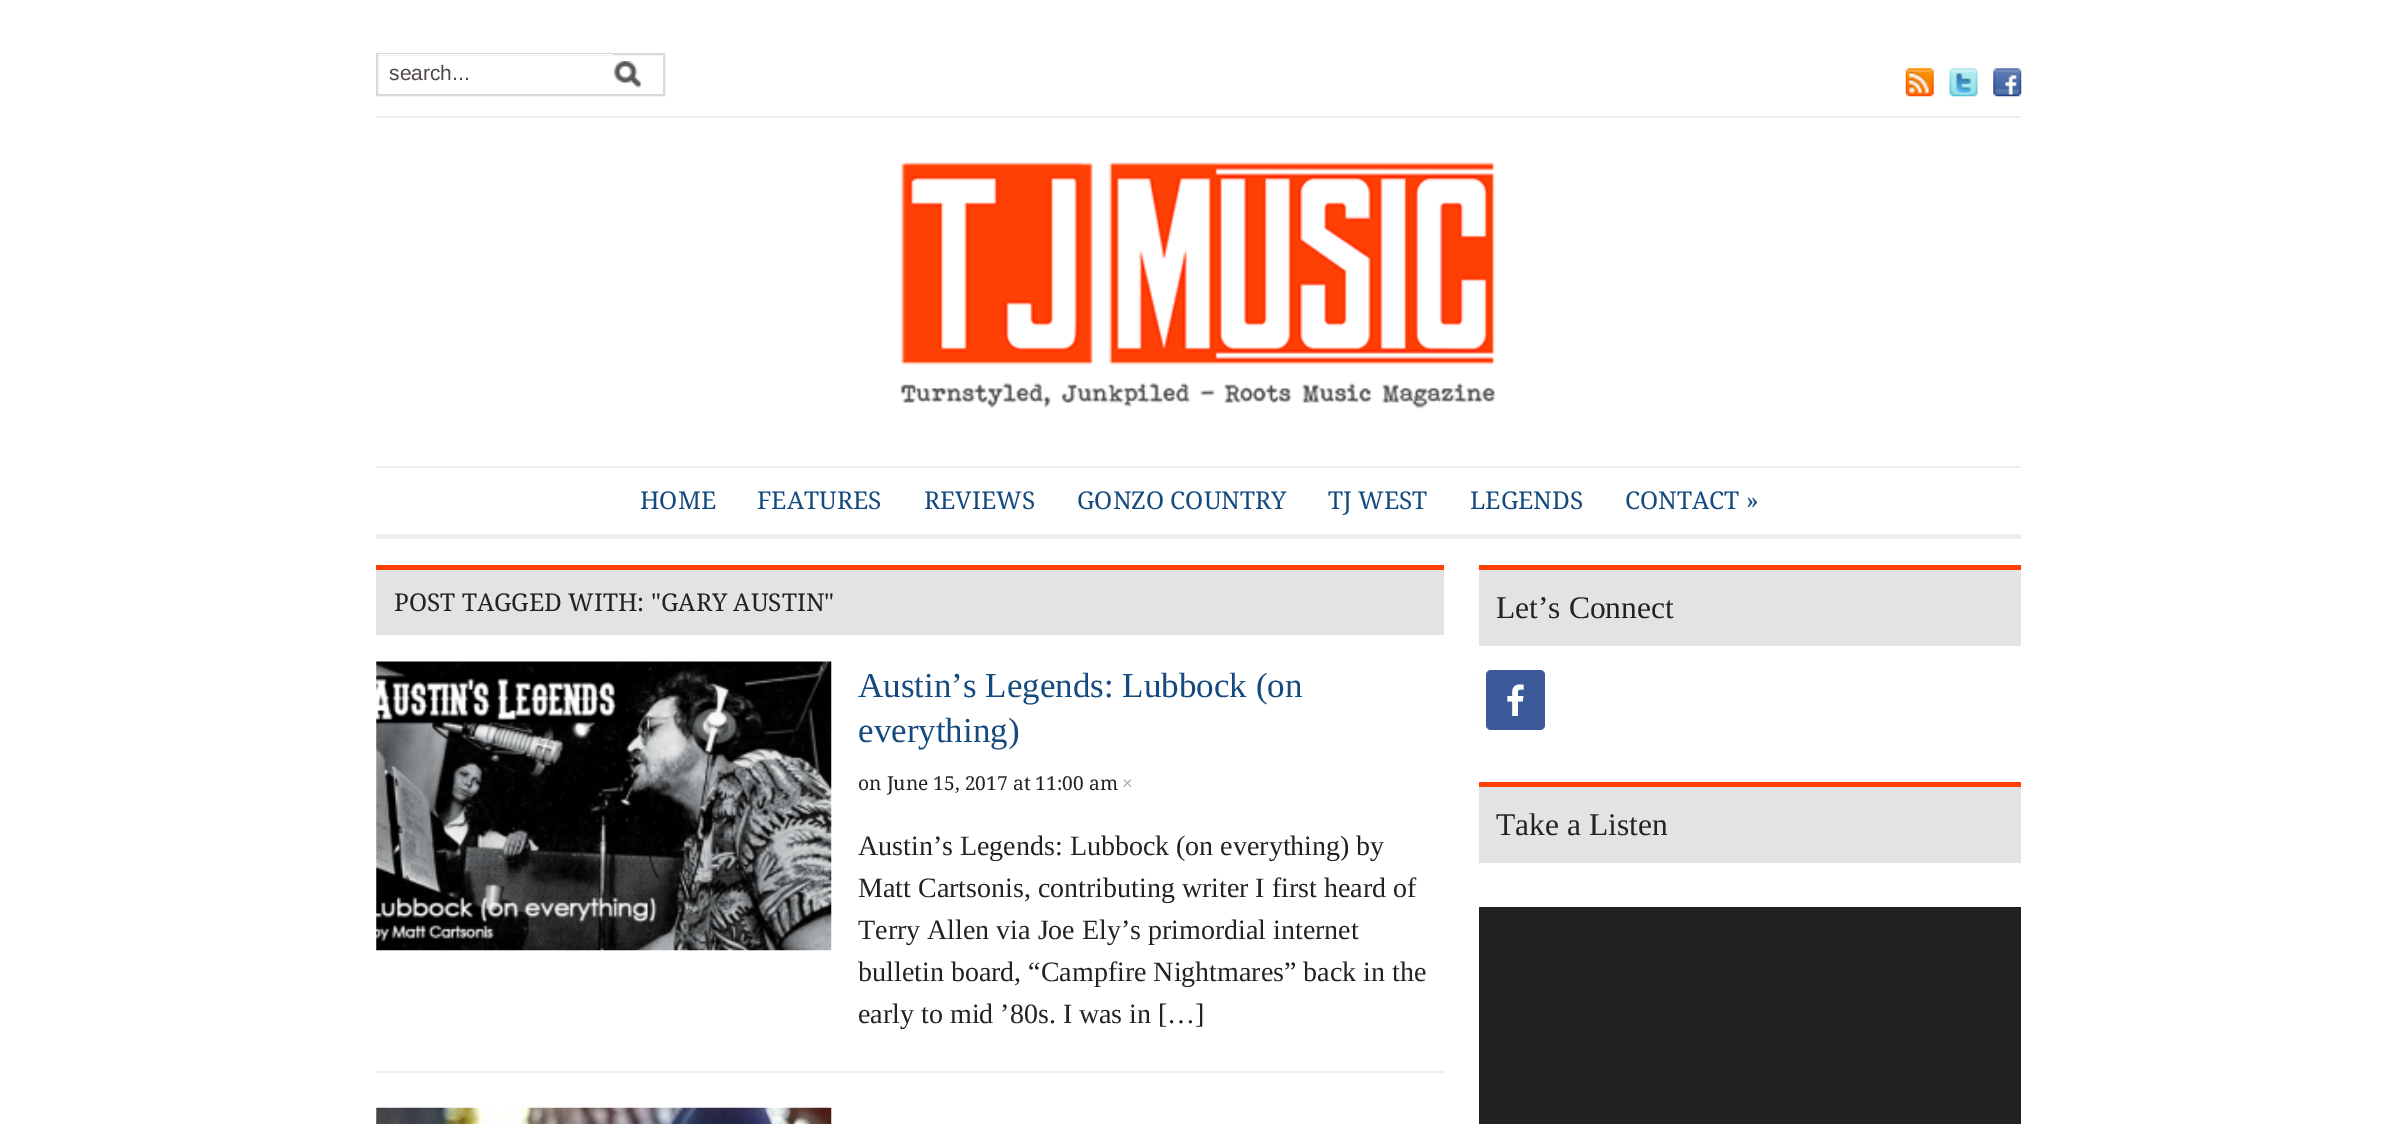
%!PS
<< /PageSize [2397 1124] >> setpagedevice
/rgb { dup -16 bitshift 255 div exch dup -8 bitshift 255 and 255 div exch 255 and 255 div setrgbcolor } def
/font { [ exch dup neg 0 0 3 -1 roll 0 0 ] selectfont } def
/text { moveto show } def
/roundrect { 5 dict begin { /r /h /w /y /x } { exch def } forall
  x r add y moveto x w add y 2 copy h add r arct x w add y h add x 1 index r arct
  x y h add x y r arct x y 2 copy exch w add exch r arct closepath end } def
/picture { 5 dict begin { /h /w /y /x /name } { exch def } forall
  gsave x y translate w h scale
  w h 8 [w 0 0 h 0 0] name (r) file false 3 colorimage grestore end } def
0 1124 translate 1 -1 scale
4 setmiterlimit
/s1 { /LiberationSans-Regular 21 font 16#4F4747 rgb } def
/s2 { /DroidSerif-Regular 24.5 font 16#154A7F rgb } def
/s3 { /DroidSerif-Regular 24.5 font 16#222222 rgb } def
/s4 { /LiberationSerif-Regular 35 font 16#154A7F rgb } def
/s5 { /DroidSerif-Regular 19.25 font 16#222222 rgb } def
/s6 { /DroidSerif-Regular 19.25 font 16#ACA7A7 rgb } def
/s7 { /LiberationSerif-Regular 28 font 16#222222 rgb } def
/s8 { /LiberationSerif-Regular 31.5 font 16#222222 rgb } def
16#FFFFFF rgb
0 0 2397 1124 rectfill
16#DAD8D8 rgb
2 setlinewidth
377 54 287 41 rectstroke
16#FFFFFF rgb
378 54 235 1 rectfill
s1
(search...) 389 80 text
(pic1.raw) 613 61 29 27 picture
(pic2.raw) 1905 68 29 29 picture
(pic3.raw) 1949 68 29 29 picture
(pic4.raw) 1993 68 29 29 picture
16#EEEEEE rgb
376 116 1645 2 rectfill
(pic5.raw) 900 162 595 247 picture
376 466 1645 2 rectfill
376 534 1645 5 rectfill
s2
(HOME) 640 509 text
(FEATURES) 757 509 text
(REVIEWS) 924 509 text
(GONZO COUNTRY) 1077 509 text
(TJ WEST) 1328 509 text
(LEGENDS) 1470 509 text
(CONTACT ») 1625 509 text
16#E3E3E3 rgb
376 570 1068 65 rectfill
16#FF4004 rgb
376 565 1068 5 rectfill
s3
(POST TAGGED WITH: "GARY AUSTIN") 394 611 text
16#EEEEEE rgb
376 1071 1068 2 rectfill
(pic6.raw) 376 661 456 290 picture
s4
(Austin’s Legends: Lubbock \(on) 858 697 text
(everything\)) 858 742 text
s5
(on June 15, 2017 at 11:00 am) 858 790 text
s6
(×) 1122 790 text
s7
(Austin’s Legends: Lubbock \(on everything\) by) 858 855 text
(Matt Cartsonis, contributing writer I first heard of) 858 897 text
(Terry Allen via Joe Ely’s primordial internet) 858 939 text
(bulletin board, “Campfire Nightmares” back in the) 858 981 text
(early to mid ’80s. I was in […]) 858 1023 text
(pic7.raw) 376 1107 456 17 picture
16#E3E3E3 rgb
1479 570 542 76 rectfill
16#FF4004 rgb
1479 565 542 5 rectfill
s8
(Let’s Connect) 1496 618 text
16#3B5998 rgb
1486 670 59 60 5 roundrect fill
(pic8.raw) 1507 684 17 32 picture
16#E3E3E3 rgb
1479 787 542 76 rectfill
16#FF4004 rgb
1479 782 542 5 rectfill
s8
(Take a Listen) 1496 835 text
1479 907 542 217 rectfill
showpage
